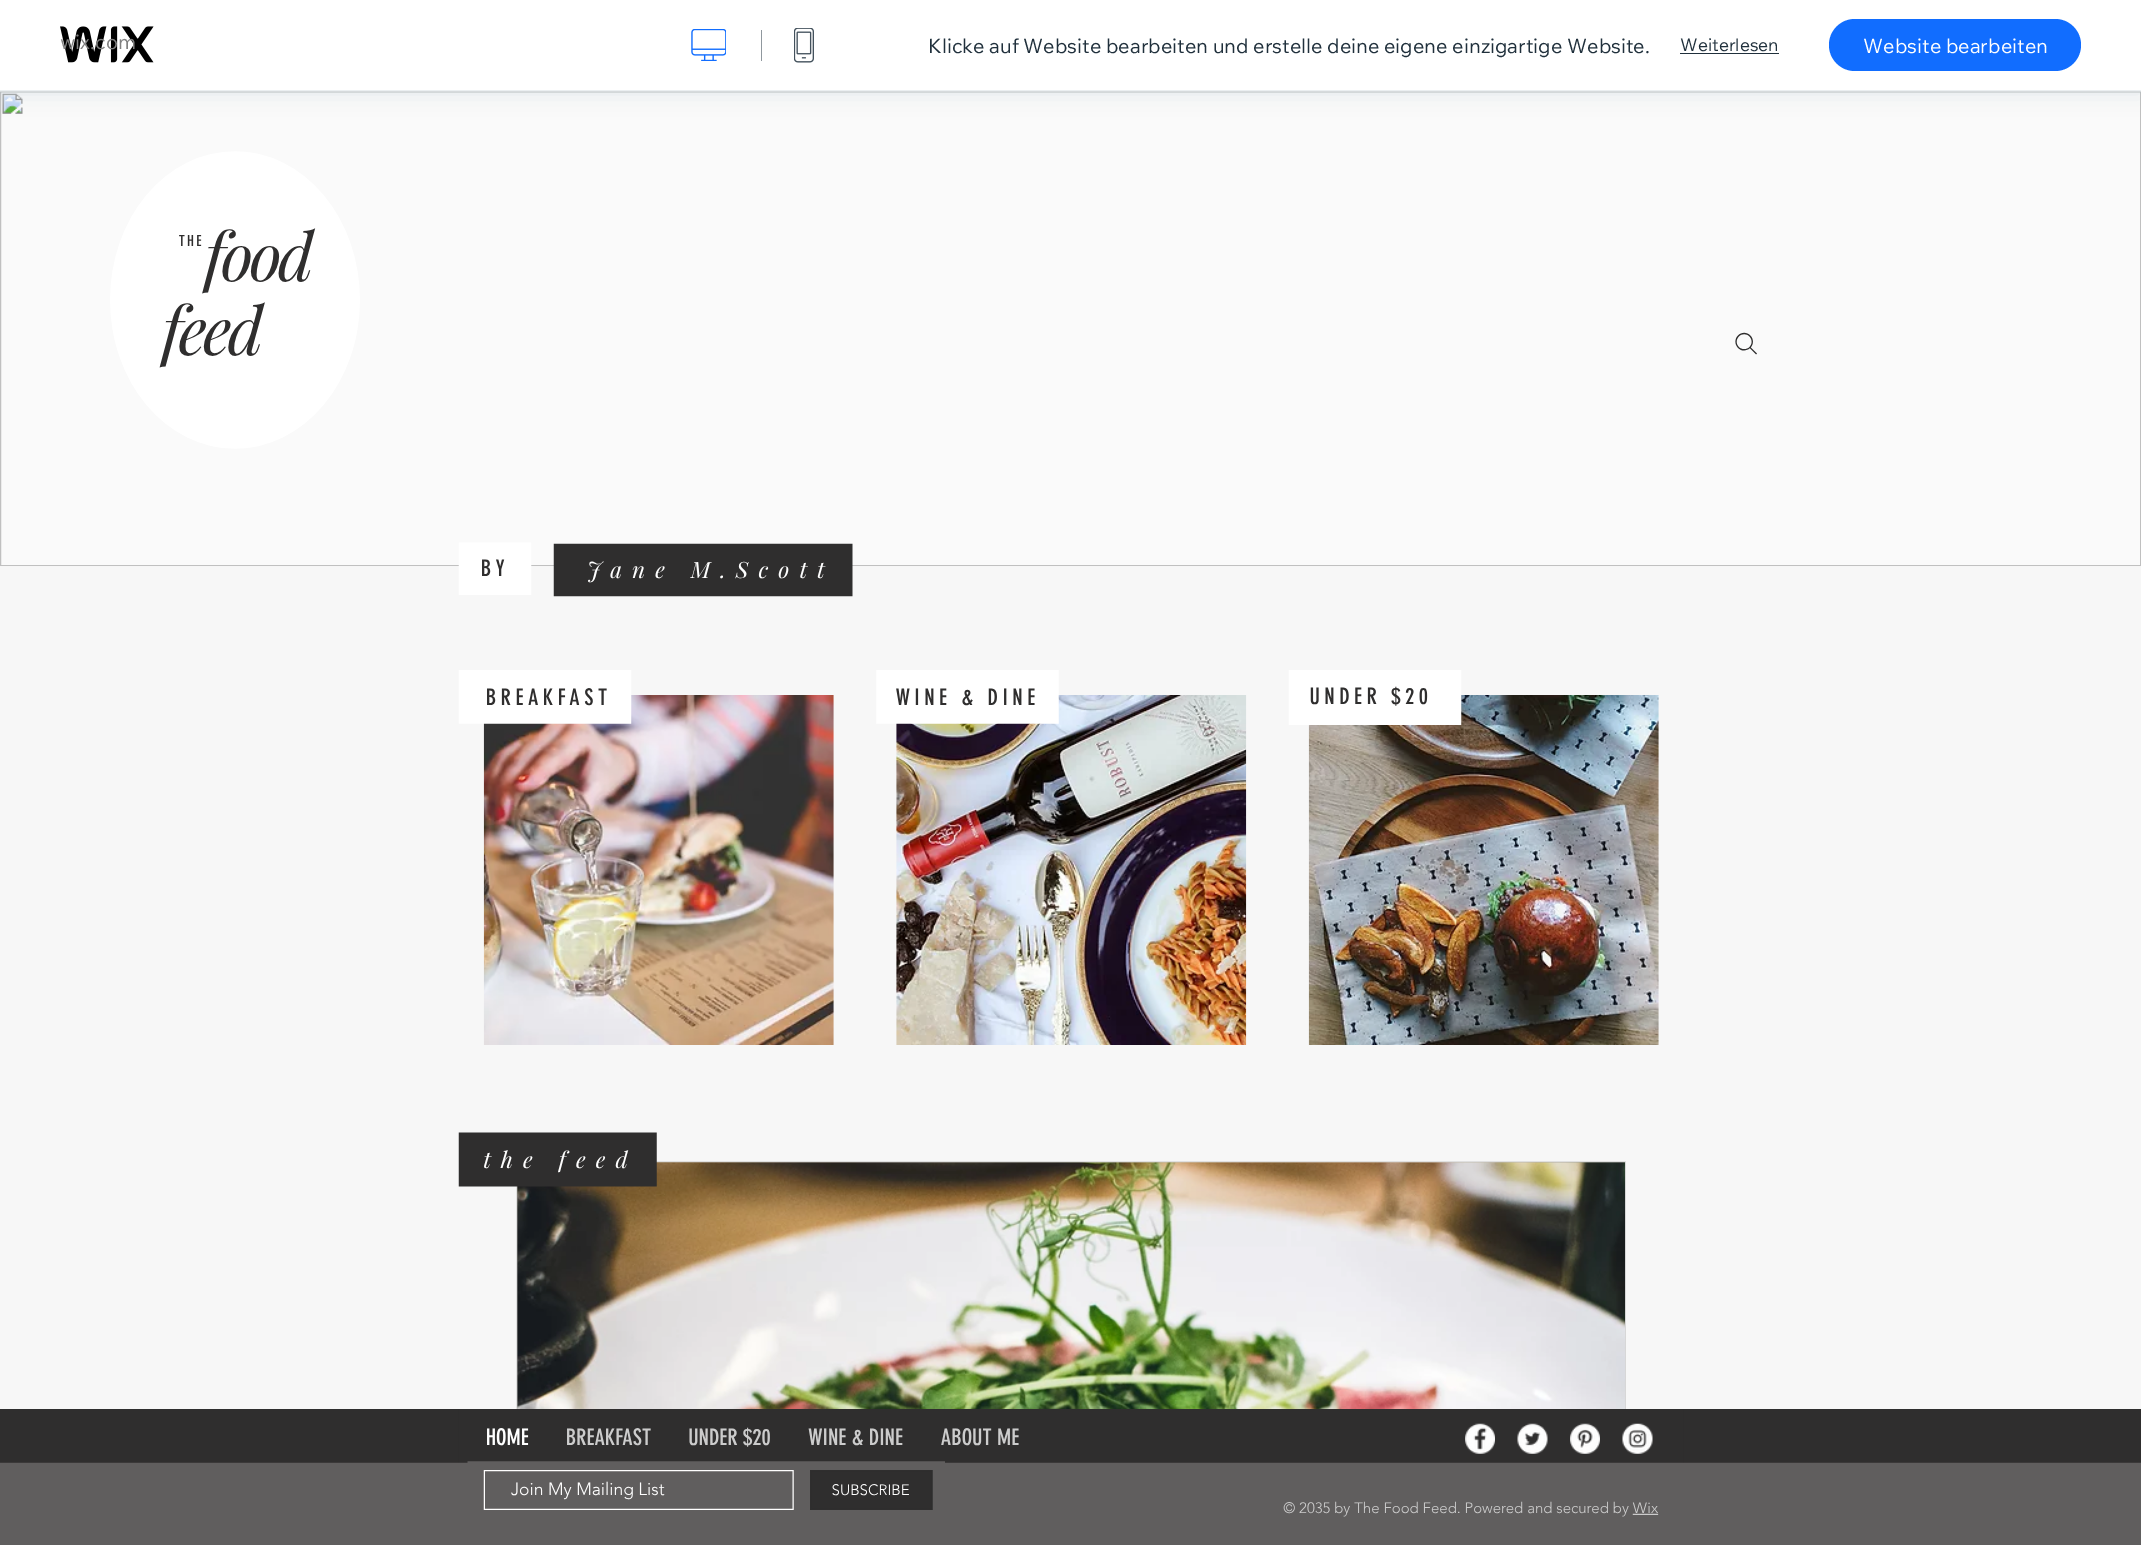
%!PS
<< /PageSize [2141 1545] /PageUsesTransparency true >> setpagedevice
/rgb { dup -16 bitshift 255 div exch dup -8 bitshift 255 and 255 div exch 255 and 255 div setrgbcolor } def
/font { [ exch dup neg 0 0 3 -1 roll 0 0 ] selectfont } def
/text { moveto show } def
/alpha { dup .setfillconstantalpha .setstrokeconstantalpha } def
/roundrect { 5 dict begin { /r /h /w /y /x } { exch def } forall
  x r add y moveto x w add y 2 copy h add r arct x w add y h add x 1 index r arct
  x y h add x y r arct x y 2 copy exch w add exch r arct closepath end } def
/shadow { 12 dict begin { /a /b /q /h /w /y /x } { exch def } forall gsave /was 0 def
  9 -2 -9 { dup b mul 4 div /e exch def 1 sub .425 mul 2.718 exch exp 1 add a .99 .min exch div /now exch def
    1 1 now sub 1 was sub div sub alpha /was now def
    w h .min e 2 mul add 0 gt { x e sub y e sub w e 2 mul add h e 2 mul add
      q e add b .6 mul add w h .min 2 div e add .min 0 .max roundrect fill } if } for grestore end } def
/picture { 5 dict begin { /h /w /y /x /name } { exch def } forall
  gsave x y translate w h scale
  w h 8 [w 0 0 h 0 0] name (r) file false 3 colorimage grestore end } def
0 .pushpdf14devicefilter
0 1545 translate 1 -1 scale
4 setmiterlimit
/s1 { /WixMadeforText-Regular 20 font 16#818181 rgb } def
/s2 { /WixMadeforText-Regular 20 font 16#20303C rgb } def
/s3 { /WixMadeforText-Regular 17.5 font 16#20303C rgb } def
/s4 { /WixMadeforText-Regular 20 font 16#FFFFFF rgb } def
16#F9FAFA rgb
0 0 2141 1545 rectfill
(pic4.raw) 0 91 2141 1454 picture
16#81A2B6 rgb
0 3 2141 90 0 11 0.2 shadow
16#FFFFFF rgb
0 0 2141 90 rectfill
(pic1.raw) 60 26 94 37 picture
s1
(wix.com) 60 49 text
(pic2.raw) 691 29 35 32 picture
16#90989E rgb
761 30 1 31 rectfill
(pic3.raw) 794 28 20 35 picture
s2
(Klicke auf Website bearbeiten und erstelle deine eigene einzigartige Website.) 928 53 text
s3
(Weiterlesen) 1680 51 text
1680 53 99 1 rectfill
16#116DFF rgb
1829 19 252 52 26 roundrect fill
s4
(Website bearbeiten) 1863 53 text
.poppdf14devicefilter showpage
